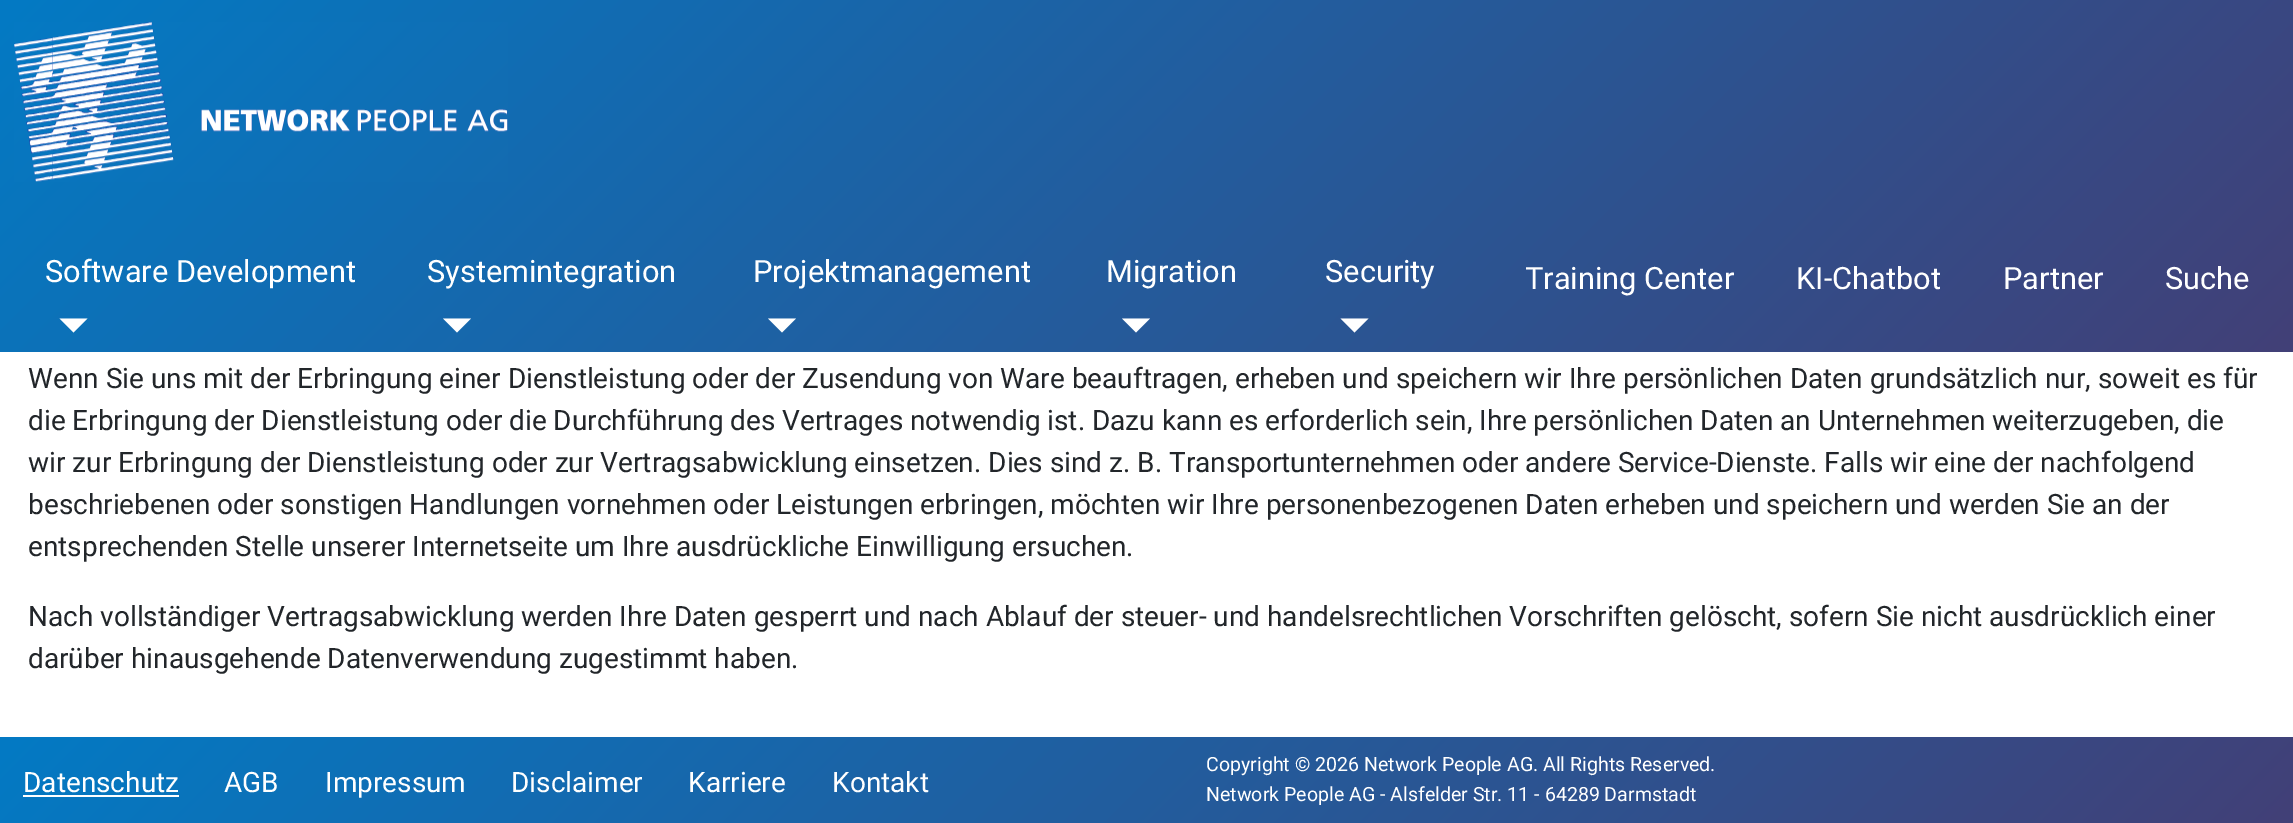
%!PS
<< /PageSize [2293 823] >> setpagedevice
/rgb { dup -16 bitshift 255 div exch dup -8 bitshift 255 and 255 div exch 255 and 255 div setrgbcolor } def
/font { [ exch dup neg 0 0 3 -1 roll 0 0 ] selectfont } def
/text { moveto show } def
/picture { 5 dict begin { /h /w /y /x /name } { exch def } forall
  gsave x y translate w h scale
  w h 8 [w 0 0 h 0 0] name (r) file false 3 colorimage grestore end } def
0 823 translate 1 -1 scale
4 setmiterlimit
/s1 { /Roboto-Regular 30.75 font 16#FFFFFF rgb } def
/s2 { /Roboto-Regular 28 font 16#22262A rgb } def
/s3 { /Roboto-Regular 28 font 16#FFFFFF rgb } def
/s4 { /Roboto-Regular 19.6 font 16#FFFFFF rgb } def
16#FFFFFF rgb
0 0 2293 823 rectfill
gsave 0 0 moveto 2293 0 lineto 2293 352 lineto 0 352 lineto closepath clip newpath
<< /ShadingType 2 /ColorSpace /DeviceRGB /Coords [486 -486 1809 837] /Extend [true true] /Function << /FunctionType 2 /Domain [0 1] /C0 [0.012 0.478 0.769] /C1 [0.259 0.251 0.467] /N 1 >> >> shfill grestore
(pic1.raw) 14 22 494 160 picture
s1
(Software Development) 45 282 text
59.5 318.5 moveto 87.5 318.5 lineto 73.5 332.5 lineto closepath fill
(Systemintegration) 427 282 text
443 318.5 moveto 471 318.5 lineto 457 332.5 lineto closepath fill
(Projektmanagement) 753 282 text
768 318.5 moveto 796 318.5 lineto 782 332.5 lineto closepath fill
(Migration) 1106 282 text
1122 318.5 moveto 1150 318.5 lineto 1136 332.5 lineto closepath fill
(Security) 1325 282 text
1340.5 318.5 moveto 1368.5 318.5 lineto 1354.5 332.5 lineto closepath fill
gsave
1526 256 208 45 rectclip
(Training Center) 1525 289 text
grestore
(KI-Chatbot) 1796 289 text
(Partner) 2003 289 text
(Suche) 2165 289 text
s2
(Wenn Sie uns mit der Erbringung einer Dienstleistung oder der Zusendung von Ware beauftragen, erheben und speichern wir Ihre persönlichen Daten grundsätzlich nur, soweit es für) 28 388 text
(die Erbringung der Dienstleistung oder die Durchführung des Vertrages notwendig ist. Dazu kann es erforderlich sein, Ihre persönlichen Daten an Unternehmen weiterzugeben, die) 28 430 text
(wir zur Erbringung der Dienstleistung oder zur Vertragsabwicklung einsetzen. Dies sind z. B. Transportunternehmen oder andere Service-Dienste. Falls wir eine der nachfolgend) 28 472 text
(beschriebenen oder sonstigen Handlungen vornehmen oder Leistungen erbringen, möchten wir Ihre personenbezogenen Daten erheben und speichern und werden Sie an der) 28 514 text
(entsprechenden Stelle unserer Internetseite um Ihre ausdrückliche Einwilligung ersuchen.) 28 556 text
(Nach vollständiger Vertragsabwicklung werden Ihre Daten gesperrt und nach Ablauf der steuer- und handelsrechtlichen Vorschriften gelöscht, sofern Sie nicht ausdrücklich einer) 28 626 text
(darüber hinausgehende Datenverwendung zugestimmt haben.) 28 668 text
gsave 0 737 moveto 2293 737 lineto 2293 823 lineto 0 823 lineto closepath clip newpath
<< /ShadingType 2 /ColorSpace /DeviceRGB /Coords [550 186 1744 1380] /Extend [true true] /Function << /FunctionType 2 /Domain [0 1] /C0 [0.012 0.478 0.769] /C1 [0.259 0.251 0.467] /N 1 >> >> shfill grestore
s3
(Datenschutz) 23 792 text
23 795 156 2 rectfill
(AGB) 224 792 text
(Impressum) 325 792 text
(Disclaimer) 511 792 text
(Karriere) 688 792 text
(Kontakt) 832 792 text
s4
(Copyright © 2026 Network People AG. All Rights Reserved.) 1206 771 text
(Network People AG - Alsfelder Str. 11 - 64289 Darmstadt) 1206 801 text
showpage
